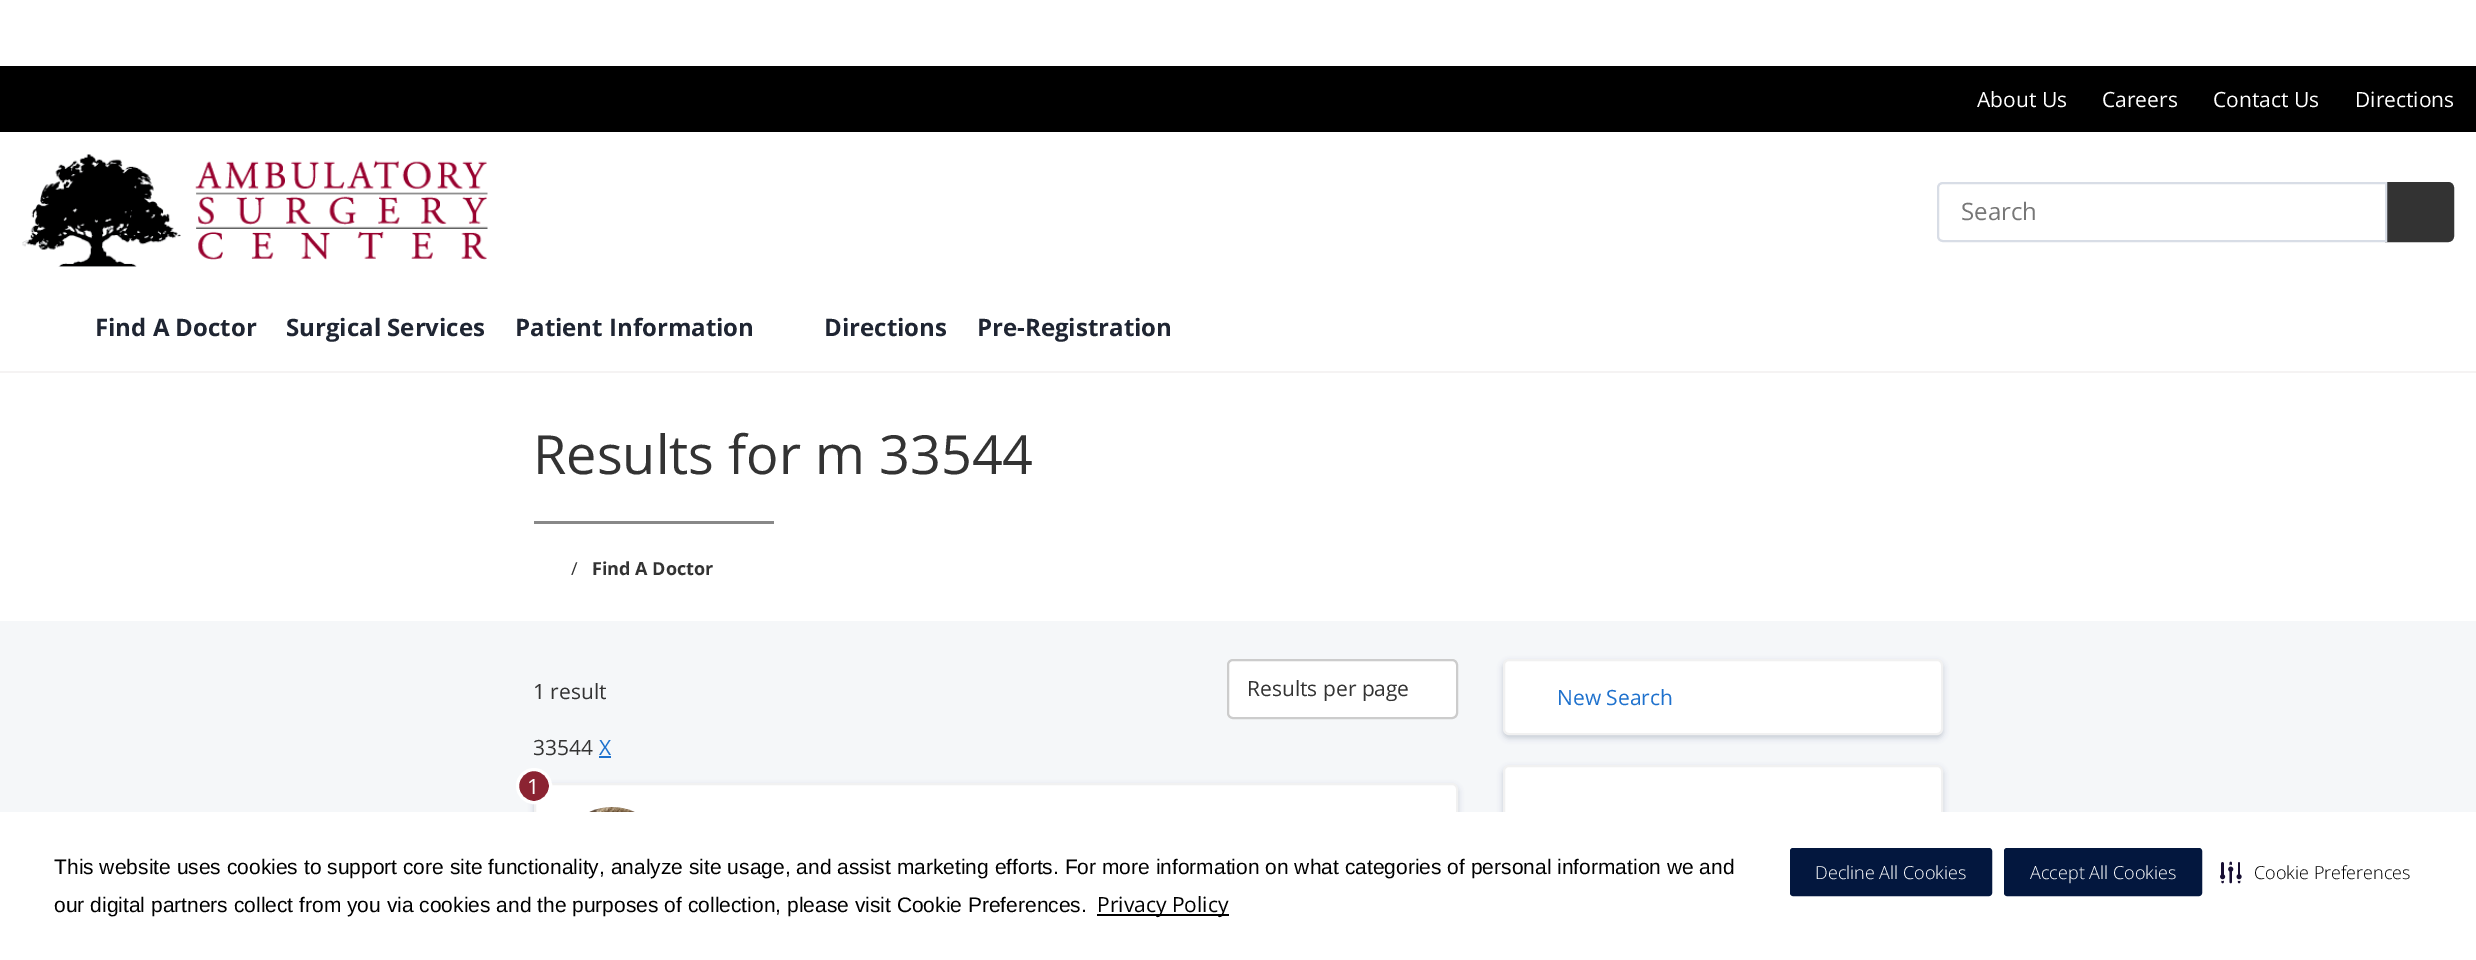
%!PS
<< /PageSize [2476 960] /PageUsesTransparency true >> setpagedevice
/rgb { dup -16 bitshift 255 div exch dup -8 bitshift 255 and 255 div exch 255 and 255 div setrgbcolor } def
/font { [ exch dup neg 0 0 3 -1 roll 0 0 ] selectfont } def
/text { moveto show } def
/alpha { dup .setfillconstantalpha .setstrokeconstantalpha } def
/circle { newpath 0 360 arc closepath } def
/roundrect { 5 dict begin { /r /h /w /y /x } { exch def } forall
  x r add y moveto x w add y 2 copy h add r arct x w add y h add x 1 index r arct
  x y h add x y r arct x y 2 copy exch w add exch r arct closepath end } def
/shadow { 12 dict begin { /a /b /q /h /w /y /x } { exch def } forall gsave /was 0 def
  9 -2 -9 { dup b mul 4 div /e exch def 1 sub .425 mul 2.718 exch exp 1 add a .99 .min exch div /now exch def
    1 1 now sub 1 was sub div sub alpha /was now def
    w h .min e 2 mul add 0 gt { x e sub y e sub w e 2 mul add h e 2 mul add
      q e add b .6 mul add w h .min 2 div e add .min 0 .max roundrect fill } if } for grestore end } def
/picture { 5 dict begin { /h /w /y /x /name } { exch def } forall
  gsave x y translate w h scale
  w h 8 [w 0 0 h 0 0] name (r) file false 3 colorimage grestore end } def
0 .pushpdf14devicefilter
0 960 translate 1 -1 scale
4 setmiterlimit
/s1 { /OpenSans-Regular 21 font 16#FFFFFF rgb } def
/s2 { /OpenSans-Regular 24 font 16#777777 rgb } def
/s3 { /OpenSans-Bold 24 font 16#1F2532 rgb } def
/s4 { /OpenSans-Regular 54 font 16#333333 rgb } def
/s5 { /OpenSans-Regular 18 font 16#333333 rgb } def
/s6 { /OpenSans-Bold 18 font 16#333333 rgb } def
/s7 { /OpenSans-Regular 21 font 16#333333 rgb } def
/s8 { /OpenSans-Regular 21 font 16#1E71CD rgb } def
/s9 { /LiberationSans-Regular 21 font 16#000000 rgb } def
/s10 { /OpenSans-Regular 21 font 16#000000 rgb } def
/s11 { /OpenSans-Light 18 font 16#FFFFFF rgb } def
/s12 { /OpenSans-Light 18 font 16#000000 rgb } def
16#F5F7F9 rgb
0 0 2476 960 rectfill
16#FFFFFF rgb
0 0 2476 371 rectfill
16#000000 rgb
0 66 2476 66 rectfill
s1
(About Us) 1977 107 text
(Careers) 2102 107 text
(Contact Us) 2213 107 text
(Directions) 2355 107 text
(pic1.raw) 22 154 466 113 picture
16#333333 rgb
2386 183 moveto 2448 183 lineto 2451 183 2453 185 2453 188 curveto 2453 236 lineto 2453 239 2451 241 2448 241 curveto 2386 241 lineto closepath gsave fill grestore
2 setlinewidth
stroke
16#FFFFFF rgb
1943 183 moveto 2386 183 lineto 2386 241 lineto 1943 241 lineto 1940 241 1938 239 1938 236 curveto 1938 188 lineto 1938 185 1940 183 1943 183 curveto closepath gsave fill grestore
16#D8DDE6 rgb
stroke
s2
(Search) 1961 220 text
16#F5F3F3 rgb
0 371 2476 2 rectfill
s3
(Find A Doctor) 95 336 text
(Surgical Services) 286 336 text
(Patient Information) 515 336 text
(Directions) 824 336 text
(Pre-Registration) 977 336 text
16#FFFFFF rgb
0 373 2476 248 rectfill
s4
(Results for m 33544) 533 474 text
16#888888 rgb
534 521 240 3 rectfill
s5
(/) 571 575 text
s6
(Find A Doctor) 592 575 text
s7
(1 result) 533 699 text
16#FFFFFF rgb
1228 660 229 58 5 roundrect gsave fill grestore
16#CCCCCC rgb
stroke
s7
(Results per page) 1247 696 text
(33544) 533 755 text
s8
(X) 599 755 text
599 756 12 2 rectfill
16#061C3F rgb
534 786 924 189 6 3 0.2 shadow
16#FFFFFF rgb
535 784 922 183 5 roundrect gsave fill grestore
16#F1F1F1 rgb
stroke
16#8B2332 rgb
534 786 16.5 circle gsave fill grestore
16#FFFFFF rgb
3 setlinewidth
stroke
(1) 527 794 text
(pic2.raw) 589 807 46 5 picture
16#061C3F rgb
1503 662 440 76 6 3 0.2 shadow
16#FFFFFF rgb
1504 660 438 74 5 roundrect gsave fill grestore
16#F1F1F1 rgb
2 setlinewidth
stroke
s8
(New Search) 1557 705 text
16#061C3F rgb
1503 768 440 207 6 3 0.2 shadow
16#FFFFFF rgb
1504 766 438 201 5 roundrect gsave fill grestore
16#F1F1F1 rgb
stroke
16#FFFFFF rgb
0 812 2476 148 rectfill
s9
(This website uses cookies to support core site functionality, analyze site usage, and assist marketing efforts. For more information on what categories of personal information we and) 54 874 text
(our digital partners collect from you via cookies and the purposes of collection, please visit Cookie Preferences.) 54 912 text
1097 914 132 2 rectfill
s10
(Privacy Policy) 1097 912 text
16#03173E rgb
1791 849 200 46 2 roundrect gsave fill grestore
stroke
s11
(Decline All Cookies) 1815 879 text
16#03173E rgb
2005 849 196 46 2 roundrect gsave fill grestore
stroke
s11
(Accept All Cookies) 2030 879 text
(pic3.raw) 2220 861 22 23 picture
s12
(Cookie Preferences) 2254 879 text
.poppdf14devicefilter showpage
